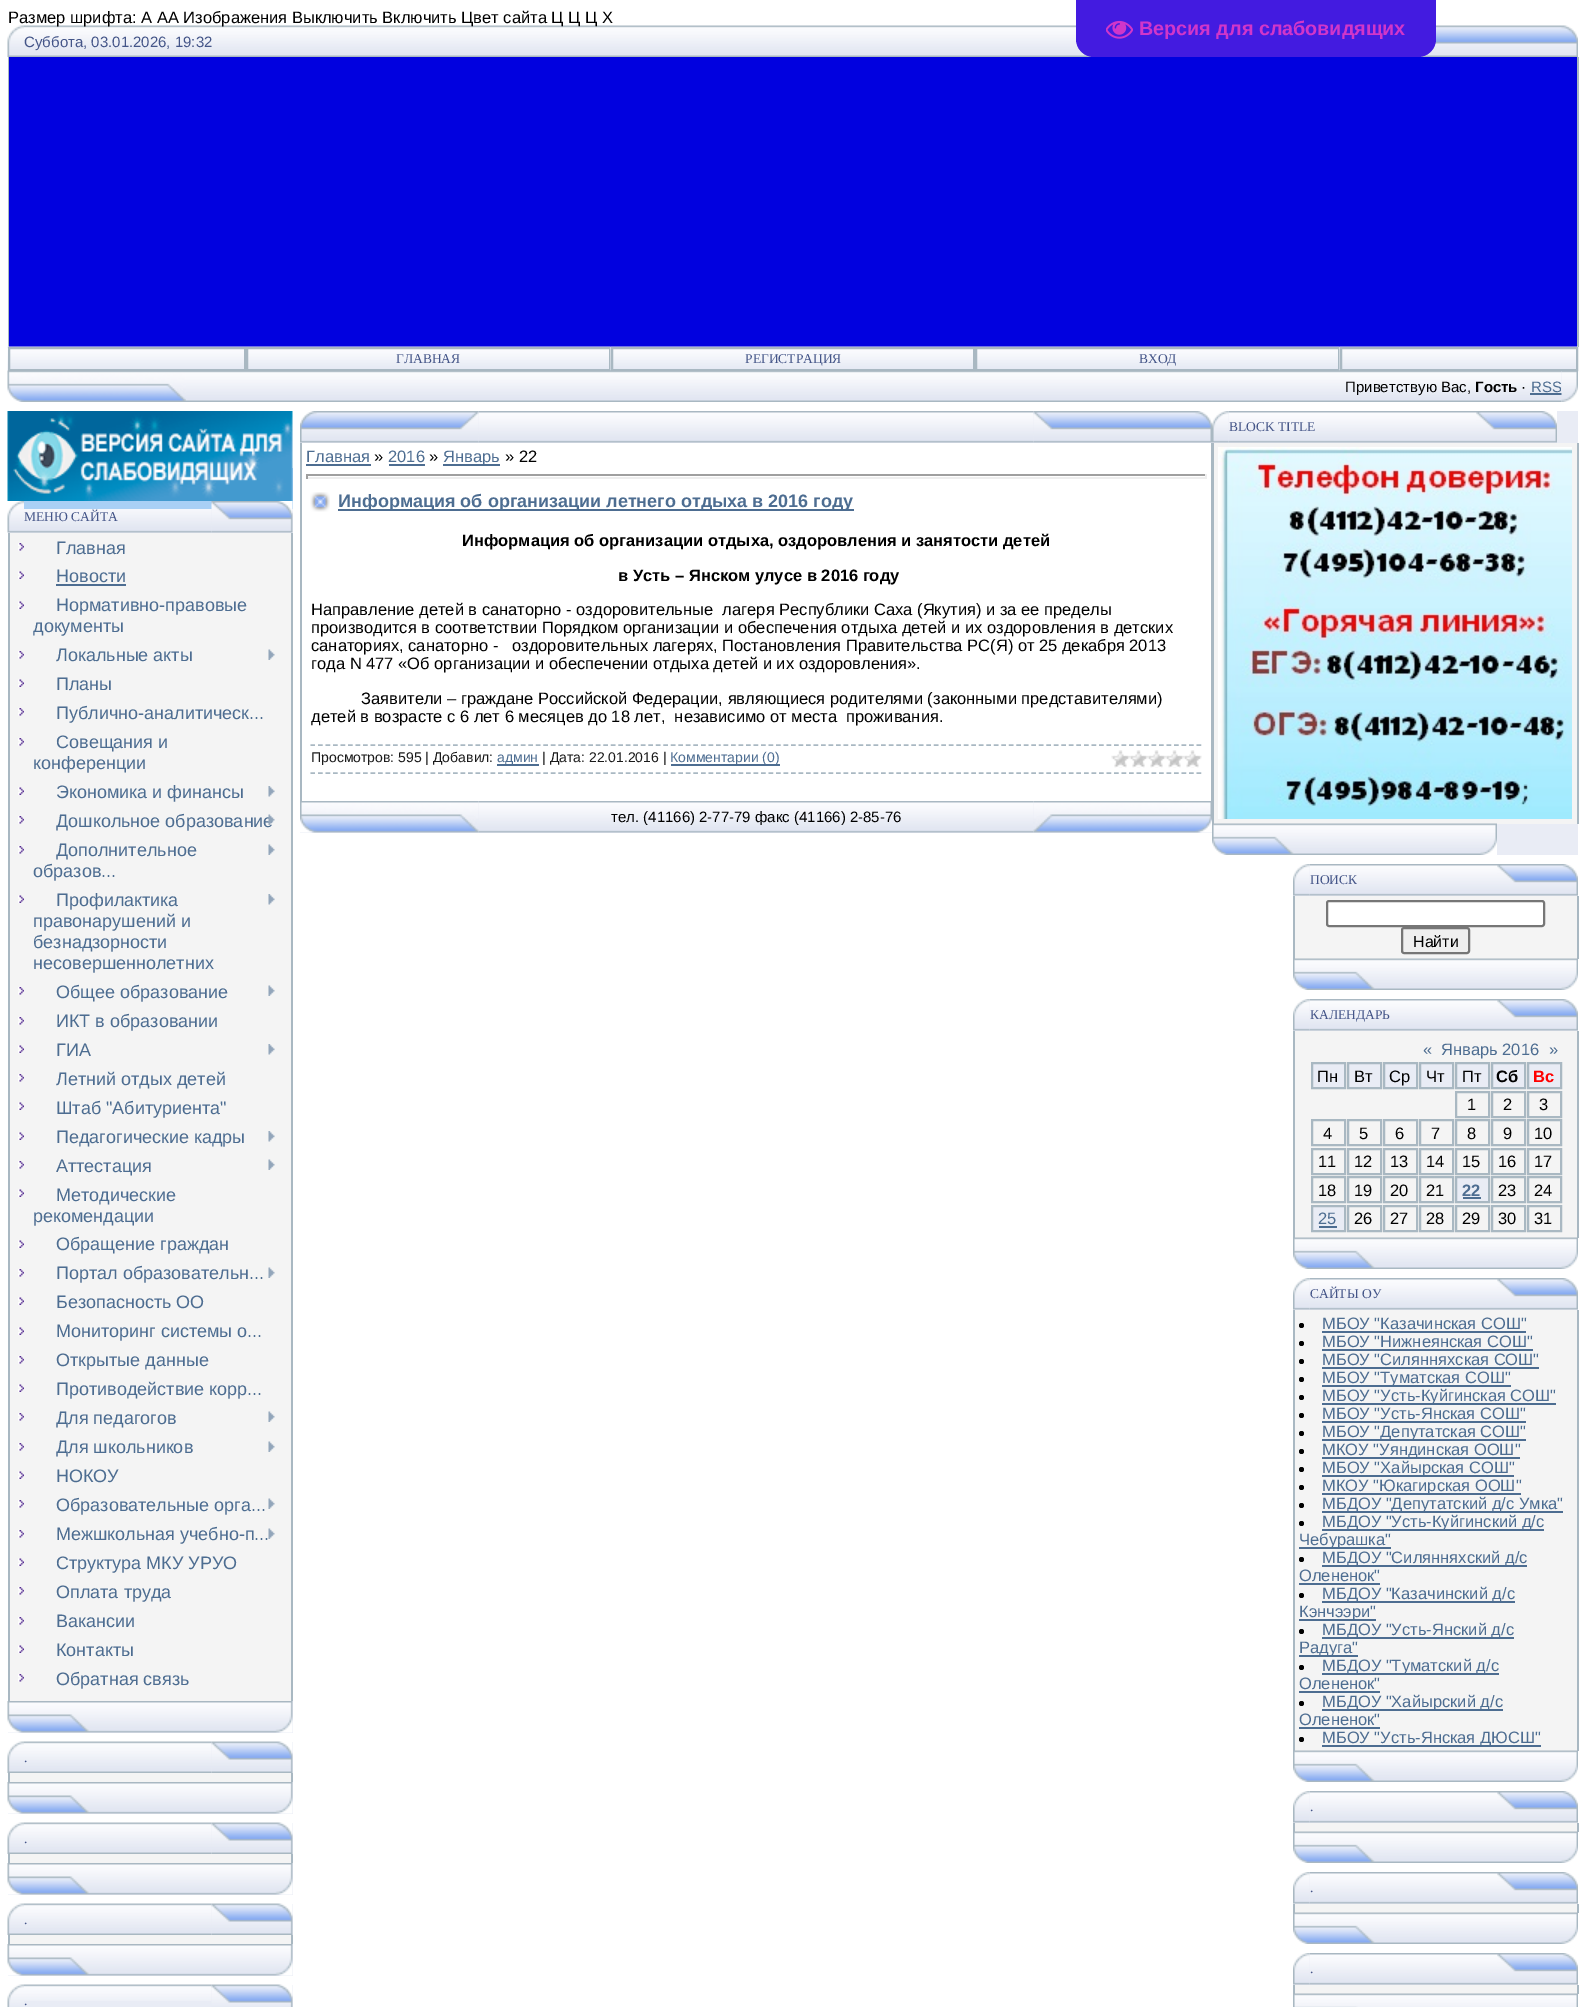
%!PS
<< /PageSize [1585 2007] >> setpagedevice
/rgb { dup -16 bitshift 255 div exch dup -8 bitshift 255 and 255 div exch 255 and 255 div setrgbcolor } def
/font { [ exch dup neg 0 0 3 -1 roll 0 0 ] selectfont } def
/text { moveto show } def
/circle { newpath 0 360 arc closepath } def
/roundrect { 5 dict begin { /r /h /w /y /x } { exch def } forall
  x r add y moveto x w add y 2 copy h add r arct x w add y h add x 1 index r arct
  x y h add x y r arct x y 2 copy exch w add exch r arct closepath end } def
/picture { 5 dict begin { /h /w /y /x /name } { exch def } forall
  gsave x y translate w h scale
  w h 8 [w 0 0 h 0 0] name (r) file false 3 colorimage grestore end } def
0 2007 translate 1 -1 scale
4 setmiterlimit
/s1 { /LiberationSans-Regular 16.5 font 16#000000 rgb } def
/s2 { /LiberationSans-Bold 19.75 font 16#D136C9 rgb } def
/s3 { /LiberationSans-Regular 15 font 16#445588 rgb } def
/s4 { /LiberationSerif-Regular 13.5 font 16#445588 rgb } def
/s5 { /LiberationSans-Regular 15 font 16#000000 rgb } def
/s6 { /LiberationSans-Bold 15 font 16#000000 rgb } def
/s7 { /LiberationSans-Regular 15 font 16#4D6D91 rgb } def
/s8 { /LiberationSans-Regular 18 font 16#4D6D91 rgb } def
/s9 { /LiberationSans-Regular 16.5 font 16#4D6D91 rgb } def
/s10 { /LiberationSans-Bold 18 font 16#4D6D91 rgb } def
/s11 { /LiberationSans-Bold 16.5 font 16#000000 rgb } def
/s12 { /LiberationSans-Regular 14 font 16#1A1A1A rgb } def
/s13 { /LiberationSans-Regular 14 font 16#4D6D91 rgb } def
/s14 { /LiberationSans-Regular 16 font 16#000000 rgb } def
/s15 { /LiberationSans-Bold 16.5 font 16#FF0000 rgb } def
/s16 { /LiberationSans-Bold 16.5 font 16#4D6D91 rgb } def
16#FFFFFF rgb
0 0 1585 2007 rectfill
(pic3.raw) 24 25 1070 32 picture
s1
(Размер шрифта: A AA Изображения Выключить Включить Цвет сайта Ц Ц Ц Х) 8 23 text
(pic4.raw) 1418 25 160 32 picture
16#431BE0 rgb
1076 0 moveto 1436 0 lineto 1436 39 lineto 1436 49 1428 57 1418 57 curveto 1094 57 lineto 1084 57 1076 49 1076 39 curveto closepath fill
(pic1.raw) 1106 20 27 19 picture
s2
(Версия для слабовидящих) 1139 35 text
(pic2.raw) 7 25 17 32 picture
s3
(Суббота, 03.01.2026, 19:32) 24 47 text
16#A9B8C2 rgb
1577 57 2 290 rectfill
8 57 1 290 rectfill
16#0101DF rgb
9 57 1568 290 rectfill
(pic5.raw) 7 346 239 25 picture
16#A9B8C2 rgb
2 setlinewidth
9 348 236 22 rectstroke
(pic6.raw) 246 346 365 23 picture
247 348 363 22 rectstroke
s4
(ГЛАВНАЯ) 396 363 text
(pic7.raw) 610 346 365 25 picture
16#A9B8C2 rgb
612 348 362 22 rectstroke
s4
(РЕГИСТРАЦИЯ) 745 363 text
(pic6.raw) 975 346 365 23 picture
16#A9B8C2 rgb
976 348 363 22 rectstroke
s4
(ВХОД) 1139 363 text
(pic8.raw) 1339 346 239 25 picture
16#A9B8C2 rgb
1341 348 236 22 rectstroke
(pic9.raw) 7 370 179 32 picture
(pic10.raw) 186 370 1376 32 picture
s5
(Приветствую Вас,) 1345 392 text
s6
(Гость) 1475 392 text
s5
(·) 1521 392 text
s7
(RSS) 1531 392 text
1530 393 32 2 rectfill
(pic11.raw) 1561 371 17 31 picture
16#A9D0F5 rgb
24 468 269 41 rectfill
(pic12.raw) 7 411 286 90 picture
16#E9ECF5 rgb
8 509 285 24 rectfill
(pic13.raw) 7 501 17 32 picture
(pic14.raw) 24 509 188 24 picture
s4
(МЕНЮ САЙТА) 24 521 text
(pic15.raw) 211 501 82 32 picture
16#F4F4F4 rgb
10 533 281 1168 rectfill
16#A9B8C2 rgb
291 533 2 1168 rectfill
8 533 2 1168 rectfill
(pic16.raw) 18 543 6 8 picture
s8
(Главная) 56 554 text
(pic17.raw) 18 571 6 8 picture
(Новости) 56 582 text
56 584 70 2 rectfill
(pic17.raw) 18 601 6 8 picture
(Нормативно-правовые) 56 611 text
(документы) 33 632 text
(pic16.raw) 18 651 6 8 picture
(Локальные акты) 56 661 text
(pic18.raw) 268 649 7 11 picture
(pic17.raw) 18 679 6 8 picture
(Планы) 56 690 text
(pic16.raw) 18 708 6 8 picture
(Публично-аналитическ...) 56 719 text
(pic16.raw) 18 738 6 8 picture
(Совещания и) 56 748 text
(конференции) 33 769 text
(pic17.raw) 18 787 6 8 picture
(Экономика и финансы) 56 798 text
(pic19.raw) 268 786 7 11 picture
(pic16.raw) 18 816 6 8 picture
(Дошкольное образование) 56 827 text
(pic20.raw) 268 814 7 11 picture
(pic16.raw) 18 846 6 8 picture
(Дополнительное) 56 856 text
(pic18.raw) 268 844 7 11 picture
(образов...) 33 877 text
(pic17.raw) 18 895 6 8 picture
(Профилактика) 56 906 text
(pic19.raw) 268 894 7 11 picture
(правонарушений и) 33 927 text
(безнадзорности) 33 948 text
(несовершеннолетних) 33 969 text
(pic16.raw) 18 987 6 8 picture
(Общее образование) 56 998 text
(pic18.raw) 268 985 7 11 picture
(pic16.raw) 18 1017 6 8 picture
(ИКТ в образовании) 56 1027 text
(pic17.raw) 18 1045 6 8 picture
(ГИА) 56 1056 text
(pic19.raw) 268 1044 7 11 picture
(pic16.raw) 18 1074 6 8 picture
(Летний отдых детей) 56 1085 text
(pic17.raw) 18 1102 6 8 picture
(Штаб "Абитуриента") 56 1114 text
(pic17.raw) 18 1132 6 8 picture
(Педагогические кадры) 56 1143 text
(pic19.raw) 268 1131 7 11 picture
(pic16.raw) 18 1161 6 8 picture
(Аттестация) 56 1172 text
(pic18.raw) 268 1159 7 11 picture
(pic17.raw) 18 1189 6 8 picture
(Методические) 56 1201 text
(рекомендации) 33 1222 text
(pic17.raw) 18 1240 6 8 picture
(Обращение граждан) 56 1250 text
(pic16.raw) 18 1269 6 8 picture
(Портал образовательн...) 56 1279 text
(pic18.raw) 268 1267 7 11 picture
(pic17.raw) 18 1297 6 8 picture
(Безопасность ОО) 56 1308 text
(pic17.raw) 18 1327 6 8 picture
(Мониторинг системы о...) 56 1337 text
(pic16.raw) 18 1356 6 8 picture
(Открытые данные) 56 1366 text
(pic17.raw) 18 1384 6 8 picture
(Противодействие корр...) 56 1395 text
(pic16.raw) 18 1413 6 8 picture
(Для педагогов) 56 1424 text
(pic18.raw) 268 1411 7 11 picture
(pic16.raw) 18 1443 6 8 picture
(Для школьников) 56 1453 text
(pic18.raw) 268 1441 7 11 picture
(pic17.raw) 18 1471 6 8 picture
(НОКОУ) 56 1482 text
(pic16.raw) 18 1500 6 8 picture
(Образовательные орга...) 56 1511 text
(pic18.raw) 268 1498 7 11 picture
(pic16.raw) 18 1530 6 8 picture
(Межшкольная учебно-п...) 56 1540 text
(pic18.raw) 268 1528 7 11 picture
(pic17.raw) 18 1558 6 8 picture
(Структура МКУ УРУО) 56 1569 text
(pic16.raw) 18 1587 6 8 picture
(Оплата труда) 56 1598 text
(pic16.raw) 18 1617 6 8 picture
(Вакансии) 56 1627 text
(pic17.raw) 18 1645 6 8 picture
(Контакты) 56 1656 text
(pic16.raw) 18 1674 6 8 picture
(Обратная связь) 56 1685 text
16#E9ECF5 rgb
8 1701 285 32 rectfill
(pic21.raw) 7 1701 286 32 picture
211 1742 82 31 rectfill
(pic2.raw) 7 1741 17 32 picture
(pic22.raw) 24 1741 188 32 picture
s4
(.) 24 1762 text
(pic23.raw) 211 1741 82 32 picture
16#F4F4F4 rgb
10 1773 281 9 rectfill
16#A9B8C2 rgb
291 1773 2 9 rectfill
8 1773 2 9 rectfill
16#E9ECF5 rgb
8 1782 285 32 rectfill
(pic21.raw) 7 1782 286 32 picture
211 1823 82 31 rectfill
(pic2.raw) 7 1822 17 32 picture
(pic22.raw) 24 1822 188 32 picture
s4
(.) 24 1843 text
(pic23.raw) 211 1822 82 32 picture
16#F4F4F4 rgb
10 1854 281 9 rectfill
16#A9B8C2 rgb
291 1854 2 9 rectfill
8 1854 2 9 rectfill
16#E9ECF5 rgb
8 1863 285 32 rectfill
(pic21.raw) 7 1863 286 32 picture
211 1904 82 31 rectfill
(pic2.raw) 7 1903 17 32 picture
(pic22.raw) 24 1903 188 32 picture
s4
(.) 24 1924 text
(pic23.raw) 211 1903 82 32 picture
16#F4F4F4 rgb
10 1935 281 9 rectfill
16#A9B8C2 rgb
291 1935 2 9 rectfill
8 1935 2 9 rectfill
16#E9ECF5 rgb
8 1944 285 32 rectfill
(pic21.raw) 7 1944 286 32 picture
24 1985 269 22 rectfill
(pic24.raw) 7 1984 17 23 picture
(pic25.raw) 24 1984 188 17 picture
s4
(.) 24 2005 text
(pic26.raw) 211 1984 82 23 picture
16#E9ECF5 rgb
300 411 734 32 rectfill
(pic28.raw) 478 411 556 32 picture
(pic27.raw) 300 411 179 32 picture
1034 442 178 1 rectfill
(pic29.raw) 1033 411 179 32 picture
16#A9B8C2 rgb
1211 443 1 358 rectfill
300 443 2 358 rectfill
s9
(Главная) 306 462 text
306 464 65 2 rectfill
s1
(») 374 462 text
s9
(2016) 388 462 text
389 464 36 2 rectfill
s1
(») 429 462 text
16#4D6D91 rgb
443 464 57 2 rectfill
(Январь) 443 462 text
s1
(» 22) 505 462 text
16#9F9F9F rgb
306 474 900 2 rectfill
16#EEEEEE rgb
1205 474 2 5 rectfill
306 477 900 2 rectfill
16#9F9F9F rgb
306 474 2 5 rectfill
(pic30.raw) 310 492 20 20 picture
16#4D6D91 rgb
338 509 516 2 rectfill
s10
(Информация об организации летнего отдыха в 2016 году) 338 507 text
s11
(Информация об организации отдыха, оздоровления и занятости детей) 462 546 text
(в Усть – Янском улусе в 2016 году) 618 581 text
s1
(Направление детей в санаторно - оздоровительные  лагеря Республики Саха \(Якутия\) и за ее пределы) 311 615 text
(производится в соответствии Порядком организации и обеспечения отдыха детей и их оздоровления в детских) 311 633 text
(санаториях, санаторно -   оздоровительных лагерях, Постановления Правительства РС\(Я\) от 25 декабря 2013) 311 651 text
(года N 477 «Об организации и обеспечении отдыха детей и их оздоровления».) 311 669 text
(Заявители – граждане Российской Федерации, являющиеся родителями \(законными представителями\)) 361 704 text
(детей в возрасте с 6 лет 6 месяцев до 18 лет,  независимо от места  проживания.) 311 722 text
16#A9B8C2 rgb
1.5 setlinewidth
[4.5 3.01] 0 setdash
310.5 745 moveto 1201.5 745 lineto stroke
310.5 773 moveto 1201.5 773 lineto stroke
s12
(Просмотров: 595 | Добавил:) 311 762 text
16#4D6D91 rgb
497 764 42 2 rectfill
(админ) 497 762 text
s12
(| Дата: 22.01.2016 |) 542 762 text
16#4D6D91 rgb
671 764 109 2 rectfill
(Комментарии \(0\)) 670 762 text
(pic31.raw) 1111 750 91 18 picture
16#E9ECF5 rgb
300 801 734 32 rectfill
(pic28.raw) 478 801 556 32 picture
(pic32.raw) 300 801 179 32 picture
1034 832 178 1 rectfill
(pic33.raw) 1033 801 179 32 picture
s5
(тел. \(41166\) 2-77-79 факс \(41166\) 2-85-76) 611 822 text
16#E9ECF5 rgb
1212 411 366 32 rectfill
(pic35.raw) 1228 411 248 32 picture
(pic34.raw) 1212 411 17 32 picture
s4
(BLOCK TITLE) 1229 431 text
(pic36.raw) 1476 411 81 32 picture
16#F4F4F4 rgb
1214 443 363 381 rectfill
16#A9B8C2 rgb
1577 443 2 381 rectfill
1212 443 2 381 rectfill
(pic37.raw) 1218 447 354 372 picture
16#E9ECF5 rgb
1497 824 81 31 rectfill
(pic38.raw) 1212 823 285 32 picture
1293 864 285 32 rectfill
(pic39.raw) 1309 864 188 32 picture
(pic34.raw) 1293 864 17 32 picture
s4
(ПОИСК) 1310 884 text
(pic40.raw) 1497 864 81 32 picture
16#F4F4F4 rgb
1295 896 282 63 rectfill
16#A9B8C2 rgb
1577 896 2 63 rectfill
1293 896 2 63 rectfill
16#FFFFFF rgb
1327 901 217 25 2 roundrect gsave fill grestore
16#767676 rgb
2 setlinewidth
[] 0 setdash
stroke
16#EFEFEF rgb
1402 928 67 25 2 roundrect gsave fill grestore
16#767676 rgb
stroke
s14
(Найти) 1413 947 text
(pic41.raw) 1293 958 285 32 picture
16#E9ECF5 rgb
1293 999 285 32 rectfill
(pic39.raw) 1309 999 188 32 picture
(pic34.raw) 1293 999 17 32 picture
s4
(КАЛЕНДАРЬ) 1310 1019 text
(pic40.raw) 1497 999 81 32 picture
16#F4F4F4 rgb
1295 1031 282 207 rectfill
16#A9B8C2 rgb
1577 1031 2 207 rectfill
1293 1031 2 207 rectfill
s9
(«) 1423 1055 text
(Январь 2016) 1441 1055 text
(») 1549 1055 text
16#E9ECF5 rgb
1312 1063 moveto 1345 1063 lineto 1345 1088 lineto 1312 1088 lineto closepath gsave fill grestore
16#A9B8C2 rgb
stroke
s1
(Пн) 1317 1082 text
16#E9ECF5 rgb
1348 1063 moveto 1381 1063 lineto 1381 1088 lineto 1348 1088 lineto closepath gsave fill grestore
16#A9B8C2 rgb
stroke
s1
(Вт) 1354 1082 text
16#E9ECF5 rgb
1384 1063 moveto 1417 1063 lineto 1417 1088 lineto 1384 1088 lineto closepath gsave fill grestore
16#A9B8C2 rgb
stroke
s1
(Ср) 1389 1082 text
16#E9ECF5 rgb
1420 1063 moveto 1453 1063 lineto 1453 1088 lineto 1420 1088 lineto closepath gsave fill grestore
16#A9B8C2 rgb
stroke
s1
(Чт) 1426 1082 text
16#E9ECF5 rgb
1456 1063 moveto 1489 1063 lineto 1489 1088 lineto 1456 1088 lineto closepath gsave fill grestore
16#A9B8C2 rgb
stroke
s1
(Пт) 1462 1082 text
16#E9ECF5 rgb
1492 1063 moveto 1525 1063 lineto 1525 1088 lineto 1492 1088 lineto closepath gsave fill grestore
16#A9B8C2 rgb
stroke
s11
(Сб) 1496 1082 text
16#E9ECF5 rgb
1528 1063 moveto 1561 1063 lineto 1561 1088 lineto 1528 1088 lineto closepath gsave fill grestore
16#A9B8C2 rgb
stroke
s15
(Вс) 1533 1082 text
16#A9B8C2 rgb
1456 1092 33 25 rectstroke
s1
(1) 1467 1110 text
16#A9B8C2 rgb
1492 1092 33 25 rectstroke
s1
(2) 1503 1110 text
16#A9B8C2 rgb
1528 1092 33 25 rectstroke
s1
(3) 1539 1110 text
16#A9B8C2 rgb
1312 1120 33 25 rectstroke
s1
(4) 1323 1139 text
16#A9B8C2 rgb
1348 1120 33 25 rectstroke
s1
(5) 1359 1139 text
16#A9B8C2 rgb
1384 1120 33 25 rectstroke
s1
(6) 1395 1139 text
16#A9B8C2 rgb
1420 1120 33 25 rectstroke
s1
(7) 1431 1139 text
16#A9B8C2 rgb
1456 1120 33 25 rectstroke
s1
(8) 1467 1139 text
16#A9B8C2 rgb
1492 1120 33 25 rectstroke
s1
(9) 1503 1139 text
16#A9B8C2 rgb
1528 1120 33 25 rectstroke
s1
(10) 1534 1139 text
16#A9B8C2 rgb
1312 1149 33 25 rectstroke
s1
(11) 1318 1167 text
16#A9B8C2 rgb
1348 1149 33 25 rectstroke
s1
(12) 1354 1167 text
16#A9B8C2 rgb
1384 1149 33 25 rectstroke
s1
(13) 1390 1167 text
16#A9B8C2 rgb
1420 1149 33 25 rectstroke
s1
(14) 1426 1167 text
16#A9B8C2 rgb
1456 1149 33 25 rectstroke
s1
(15) 1462 1167 text
16#A9B8C2 rgb
1492 1149 33 25 rectstroke
s1
(16) 1498 1167 text
16#A9B8C2 rgb
1528 1149 33 25 rectstroke
s1
(17) 1534 1167 text
16#A9B8C2 rgb
1312 1177 33 25 rectstroke
s1
(18) 1318 1196 text
16#A9B8C2 rgb
1348 1177 33 25 rectstroke
s1
(19) 1354 1196 text
16#A9B8C2 rgb
1384 1177 33 25 rectstroke
s1
(20) 1390 1196 text
16#A9B8C2 rgb
1420 1177 33 25 rectstroke
s1
(21) 1426 1196 text
16#E9ECF5 rgb
1456 1177 moveto 1489 1177 lineto 1489 1202 lineto 1456 1202 lineto closepath gsave fill grestore
16#A9B8C2 rgb
stroke
s16
(22) 1462 1196 text
1463 1197 18 2 rectfill
16#A9B8C2 rgb
1492 1177 33 25 rectstroke
s1
(23) 1498 1196 text
16#A9B8C2 rgb
1528 1177 33 25 rectstroke
s1
(24) 1534 1196 text
16#E9ECF5 rgb
1312 1206 moveto 1345 1206 lineto 1345 1231 lineto 1312 1231 lineto closepath gsave fill grestore
16#A9B8C2 rgb
stroke
s9
(25) 1318 1224 text
1319 1226 18 2 rectfill
16#A9B8C2 rgb
1348 1206 33 25 rectstroke
s1
(26) 1354 1224 text
16#A9B8C2 rgb
1384 1206 33 25 rectstroke
s1
(27) 1390 1224 text
16#A9B8C2 rgb
1420 1206 33 25 rectstroke
s1
(28) 1426 1224 text
16#A9B8C2 rgb
1456 1206 33 25 rectstroke
s1
(29) 1462 1224 text
16#A9B8C2 rgb
1492 1206 33 25 rectstroke
s1
(30) 1498 1224 text
16#A9B8C2 rgb
1528 1206 33 25 rectstroke
s1
(31) 1534 1224 text
(pic41.raw) 1293 1237 285 32 picture
16#E9ECF5 rgb
1293 1278 285 32 rectfill
(pic39.raw) 1309 1278 188 32 picture
(pic34.raw) 1293 1278 17 32 picture
s4
(САЙТЫ ОУ) 1310 1298 text
(pic40.raw) 1497 1278 81 32 picture
16#F4F4F4 rgb
1295 1310 282 441 rectfill
16#A9B8C2 rgb
1577 1310 2 441 rectfill
1293 1310 2 441 rectfill
16#000000 rgb
1301.5 1325.5 2.5 circle fill
s9
(МБОУ "Казачинская СОШ") 1322 1329 text
1322 1331 204 2 rectfill
16#000000 rgb
1301.5 1343.5 2.5 circle fill
s9
(МБОУ "Нижнеянская СОШ") 1322 1347 text
1322 1349 211 2 rectfill
16#000000 rgb
1301.5 1361.5 2.5 circle fill
s9
(МБОУ "Силянняхская СОШ") 1322 1365 text
1322 1367 217 2 rectfill
16#000000 rgb
1301.5 1379.5 2.5 circle fill
16#4D6D91 rgb
1322 1385 189 2 rectfill
(МБОУ "Туматская СОШ") 1322 1383 text
16#000000 rgb
1301.5 1397.5 2.5 circle fill
16#4D6D91 rgb
1322 1403 234 2 rectfill
(МБОУ "Усть-Куйгинская СОШ") 1322 1401 text
16#000000 rgb
1301.5 1415.5 2.5 circle fill
s9
(МБОУ "Усть-Янская СОШ") 1322 1419 text
1322 1421 204 2 rectfill
16#000000 rgb
1301.5 1433.5 2.5 circle fill
16#4D6D91 rgb
1322 1439 204 2 rectfill
(МБОУ "Депутатская СОШ") 1322 1437 text
16#000000 rgb
1301.5 1451.5 2.5 circle fill
16#4D6D91 rgb
1322 1457 198 2 rectfill
(МКОУ "Уяндинская ООШ") 1322 1455 text
16#000000 rgb
1301.5 1469.5 2.5 circle fill
16#4D6D91 rgb
1322 1475 192 2 rectfill
(МБОУ "Хайырская СОШ") 1322 1473 text
16#000000 rgb
1301.5 1487.5 2.5 circle fill
16#4D6D91 rgb
1322 1493 199 2 rectfill
(МКОУ "Юкагирская ООШ") 1322 1491 text
16#000000 rgb
1301.5 1505.5 2.5 circle fill
16#4D6D91 rgb
1322 1511 241 2 rectfill
(МБДОУ "Депутатский д/с Умка") 1322 1509 text
16#000000 rgb
1301.5 1523.5 2.5 circle fill
16#4D6D91 rgb
1322 1529 222 2 rectfill
(МБДОУ "Усть-Куйгинский д/с) 1322 1527 text
1299 1547 92 2 rectfill
(Чебурашка") 1299 1545 text
16#000000 rgb
1301.5 1559.5 2.5 circle fill
16#4D6D91 rgb
1322 1565 205 2 rectfill
(МБДОУ "Силянняхский д/с) 1322 1563 text
(Олененок") 1299 1581 text
1299 1583 81 2 rectfill
16#000000 rgb
1301.5 1595.5 2.5 circle fill
16#4D6D91 rgb
1322 1601 193 2 rectfill
(МБДОУ "Казачинский д/с) 1322 1599 text
1299 1619 77 2 rectfill
(Кэнчээри") 1299 1617 text
16#000000 rgb
1301.5 1631.5 2.5 circle fill
16#4D6D91 rgb
1322 1637 192 2 rectfill
(МБДОУ "Усть-Янский д/с) 1322 1635 text
1299 1655 59 2 rectfill
(Радуга") 1299 1653 text
16#000000 rgb
1301.5 1667.5 2.5 circle fill
16#4D6D91 rgb
1322 1673 177 2 rectfill
(МБДОУ "Туматский д/с) 1322 1671 text
(Олененок") 1299 1689 text
1299 1691 81 2 rectfill
16#000000 rgb
1301.5 1703.5 2.5 circle fill
16#4D6D91 rgb
1322 1709 181 2 rectfill
(МБДОУ "Хайырский д/с) 1322 1707 text
(Олененок") 1299 1725 text
1299 1727 81 2 rectfill
16#000000 rgb
1301.5 1739.5 2.5 circle fill
16#4D6D91 rgb
1322 1745 219 2 rectfill
(МБОУ "Усть-Янская ДЮСШ") 1322 1743 text
(pic41.raw) 1293 1750 285 32 picture
16#E9ECF5 rgb
1293 1791 285 32 rectfill
(pic39.raw) 1309 1791 188 32 picture
(pic34.raw) 1293 1791 17 32 picture
s4
(.) 1310 1811 text
(pic40.raw) 1497 1791 81 32 picture
16#F4F4F4 rgb
1295 1823 282 9 rectfill
16#A9B8C2 rgb
1577 1823 2 9 rectfill
1293 1823 2 9 rectfill
(pic41.raw) 1293 1831 285 32 picture
16#E9ECF5 rgb
1293 1872 285 32 rectfill
(pic39.raw) 1309 1872 188 32 picture
(pic34.raw) 1293 1872 17 32 picture
s4
(.) 1310 1892 text
(pic40.raw) 1497 1872 81 32 picture
16#F4F4F4 rgb
1295 1904 282 9 rectfill
16#A9B8C2 rgb
1577 1904 2 9 rectfill
1293 1904 2 9 rectfill
(pic41.raw) 1293 1912 285 32 picture
16#E9ECF5 rgb
1293 1953 285 32 rectfill
(pic39.raw) 1309 1953 188 32 picture
(pic34.raw) 1293 1953 17 32 picture
s4
(.) 1310 1973 text
(pic40.raw) 1497 1953 81 32 picture
16#F4F4F4 rgb
1295 1985 282 9 rectfill
16#A9B8C2 rgb
1577 1985 2 9 rectfill
1293 1985 2 9 rectfill
(pic42.raw) 1293 1993 285 14 picture
showpage
